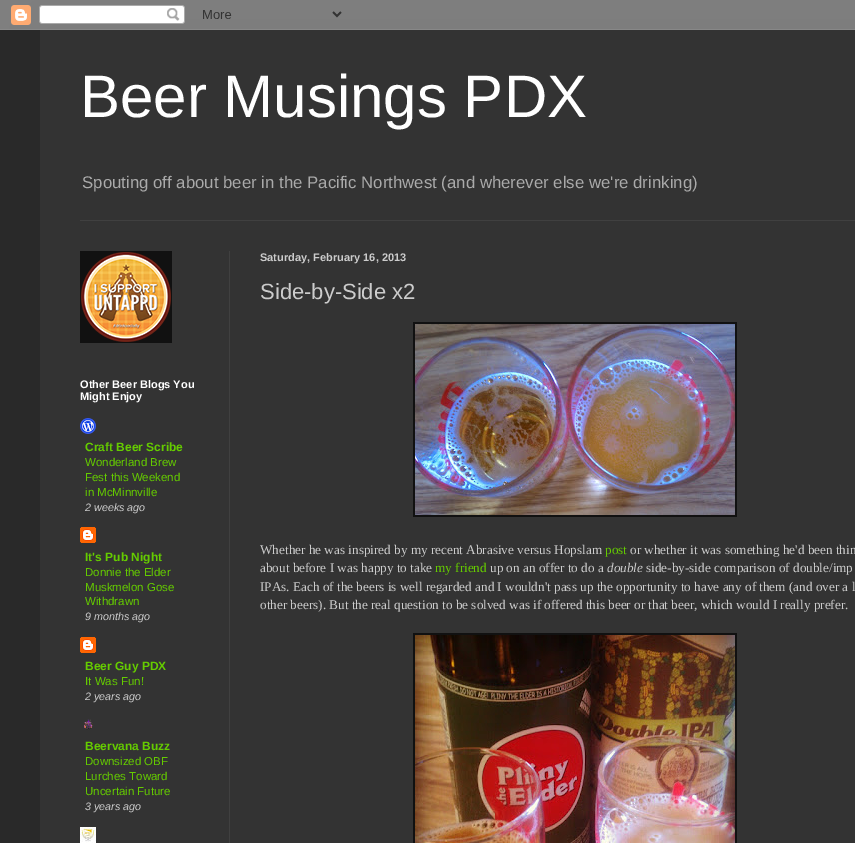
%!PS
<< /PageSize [855 843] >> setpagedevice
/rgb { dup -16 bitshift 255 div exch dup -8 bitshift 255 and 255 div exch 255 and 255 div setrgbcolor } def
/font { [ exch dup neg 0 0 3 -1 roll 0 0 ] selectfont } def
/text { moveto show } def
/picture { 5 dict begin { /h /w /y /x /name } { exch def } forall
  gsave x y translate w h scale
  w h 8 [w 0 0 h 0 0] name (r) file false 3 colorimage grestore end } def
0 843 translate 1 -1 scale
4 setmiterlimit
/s1 { /LiberationSans-Regular 60 font 16#FFFFFF rgb } def
/s2 { /LiberationSans-Regular 16.8 font 16#AAAAAA rgb } def
/s3 { /LiberationSans-Bold 11 font 16#FFFFFF rgb } def
/s4 { /LiberationSans-Bold 12 font 16#65CC00 rgb } def
/s5 { /LiberationSans-Regular 11.5 font 16#65CC00 rgb } def
/s6 { /LiberationSans-Italic 10.75 font 16#CCCCCC rgb } def
/s7 { /LiberationSans-Bold 11 font 16#CCCCCC rgb } def
/s8 { /LiberationSans-Regular 22 font 16#CCCCCC rgb } def
/s9 { /LiberationSerif-Regular 13.2 font 16#CCCCCC rgb } def
/s10 { /LiberationSerif-Regular 13.2 font 16#65CC00 rgb } def
/s11 { /LiberationSerif-Italic 13.2 font 16#CCCCCC rgb } def
16#292929 rgb
0 0 855 843 rectfill
(pic1.raw) 0 0 855 30 picture
16#333333 rgb
40 30 815 813 rectfill
s1
(Beer Musings PDX) 80 117 text
s2
(Spouting off about beer in the Pacific Northwest \(and wherever else we're drinking\)) 82 188 text
16#404040 rgb
80 220 775 1 rectfill
229 251 1 592 rectfill
16#111111 rgb
80 251 92 92 rectfill
(pic2.raw) 81 252 90 90 picture
s3
(Other Beer Blogs You) 80 388 text
(Might Enjoy) 80 400 text
(pic3.raw) 80 418 16 16 picture
s4
(Craft Beer Scribe) 85 451 text
s5
(Wonderland Brew) 85 466 text
(Fest this Weekend) 85 481 text
(in McMinnville) 85 496 text
s6
(2 weeks ago) 85 511 text
(pic4.raw) 80 527 16 16 picture
s4
(It's Pub Night) 85 561 text
s5
(Donnie the Elder) 85 576 text
(Muskmelon Gose) 85 591 text
(Withdrawn) 85 605 text
s6
(9 months ago) 85 620 text
(pic4.raw) 80 637 16 16 picture
s4
(Beer Guy PDX) 85 670 text
s5
(It Was Fun!) 85 685 text
s6
(2 years ago) 85 700 text
(pic5.raw) 84 719 9 11 picture
s4
(Beervana Buzz) 85 750 text
s5
(Downsized OBF) 85 765 text
(Lurches Toward) 85 780 text
(Uncertain Future) 85 795 text
s6
(3 years ago) 85 810 text
(pic6.raw) 80 827 16 16 picture
s7
(Saturday, February 16, 2013) 260 261 text
s8
(Side-by-Side x2) 260 299 text
16#111111 rgb
413 322 324 195 rectfill
(pic7.raw) 415 324 320 191 picture
s9
(Whether he was inspired by my recent Abrasive versus Hopslam) 260 554 text
s10
(post) 605 554 text
s9
(or whether it was something he'd been thin) 630 554 text
(about before I was happy to take) 260 572 text
s10
(my friend) 435 572 text
s9
(up on an offer to do a) 490 572 text
s11
(double) 607 572 text
s9
(side-by-side comparison of double/imp) 646 572 text
(IPAs. Each of the beers is well regarded and I wouldn't pass up the opportunity to have any of them \(and over a l) 260 591 text
(other beers\). But the real question to be solved was if offered this beer or that beer, which would I really prefer.) 260 609 text
16#111111 rgb
413 633 324 210 rectfill
(pic8.raw) 415 635 320 208 picture
showpage
